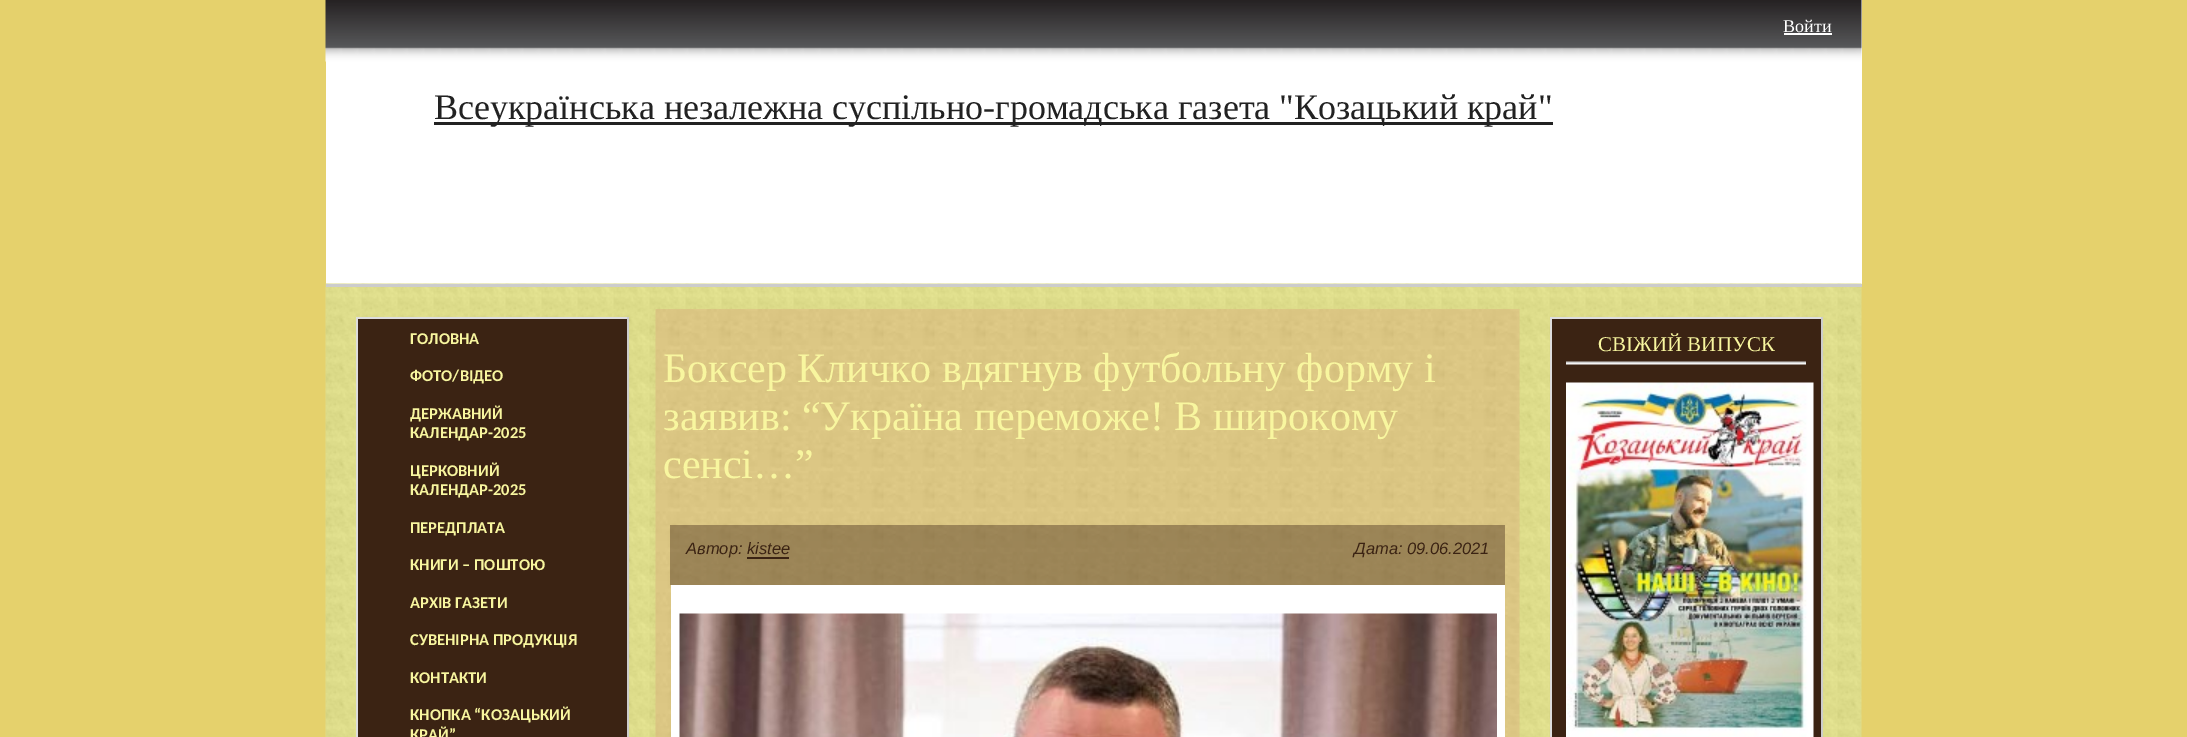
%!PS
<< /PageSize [2187 737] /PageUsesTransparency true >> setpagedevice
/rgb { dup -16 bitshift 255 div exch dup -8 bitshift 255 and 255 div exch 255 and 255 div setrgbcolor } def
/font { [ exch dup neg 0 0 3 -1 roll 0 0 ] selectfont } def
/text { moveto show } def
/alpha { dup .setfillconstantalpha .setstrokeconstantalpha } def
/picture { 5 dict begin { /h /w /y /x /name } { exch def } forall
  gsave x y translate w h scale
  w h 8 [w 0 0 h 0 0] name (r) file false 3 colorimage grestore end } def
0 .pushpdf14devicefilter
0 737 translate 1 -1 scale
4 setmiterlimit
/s1 { /LiberationSerif-Regular 18 font 16#FFFFFF rgb } def
/s2 { /LiberationSerif-Regular 36 font 16#222222 rgb } def
/s3 { /Carlito-Bold 16.5 font 16#F8F69F rgb } def
/s4 { /LiberationSerif-Regular 21 font 16#F8F69F rgb } def
/s5 { /LiberationSerif-Regular 42 font 16#F8F69F rgb } def
/s6 { /LiberationSans-Italic 16.5 font 16#3B2313 rgb } def
16#E5D16C rgb
0 0 2187 737 rectfill
16#FFFFFF rgb
326 0 1536 284 rectfill
(pic1.raw) 325 0 1537 62 picture
s1
(Войти) 1783 32 text
1784 33 48 2 rectfill
16#222222 rgb
434 122 1119 3 rectfill
s2
(Всеукраїнська незалежна суспільно-громадська газета "Козацький край") 434 119 text
(pic2.raw) 325 283 1537 454 picture
16#CCCCCC rgb
326 284 1536 3 rectfill
16#3B2313 rgb
358 319 269 418 rectfill
16#DDDDDD rgb
356 317 273 2 rectfill
16#CCCCCC rgb
627 317 2 420 rectfill
16#DDDDDD rgb
356 317 2 420 rectfill
s3
(ГОЛОВНА) 410 344 text
(ФОТО/ВІДЕО) 410 381 text
(ДЕРЖАВНИЙ) 410 419 text
(КАЛЕНДАР-2025) 410 438 text
(ЦЕРКОВНИЙ) 410 476 text
(КАЛЕНДАР-2025) 410 495 text
(ПЕРЕДПЛАТА) 410 533 text
(КНИГИ – ПОШТОЮ) 410 570 text
(АРХІВ ГАЗЕТИ) 410 608 text
(СУВЕНІРНА ПРОДУКЦІЯ) 410 645 text
(КОНТАКТИ) 410 683 text
(КНОПКА “КОЗАЦЬКИЙ) 410 720 text
(КРАЙ”) 410 740 text
16#3B2313 rgb
1552 319 269 418 rectfill
16#DDDDDD rgb
1550 317 273 2 rectfill
16#CCCCCC rgb
1821 317 2 420 rectfill
16#DDDDDD rgb
1550 317 2 420 rectfill
(pic3.raw) 1566 361 240 4 picture
s4
(СВІЖИЙ ВИПУСК) 1598 351 text
(pic4.raw) 1566 382 248 355 picture
(pic5.raw) 655 309 865 428 picture
s5
(Боксер Кличко вдягнув футбольну форму і) 663 382 text
(заявив: “Україна переможе! В широкому) 663 430 text
(сенсі…”) 663 478 text
0.4 alpha
16#3C2314 rgb
670 525 835 60 rectfill
1 alpha
s6
(Автор: kistee) 686 554 text
747 557 42 2 rectfill
(Дата: 09.06.2021) 1354 554 text
16#FFFFFF rgb
671 585 834 152 rectfill
(pic6.raw) 679 613 818 124 picture
.poppdf14devicefilter showpage
